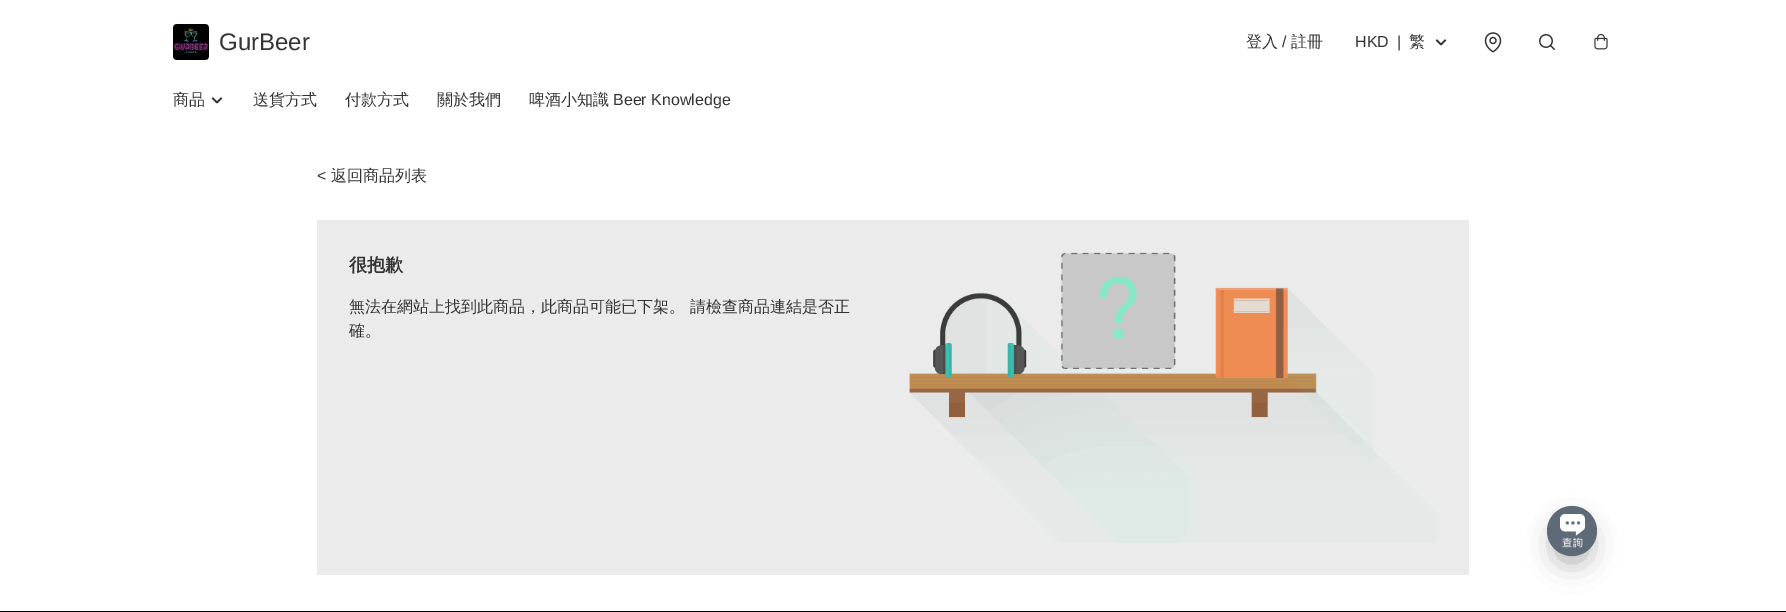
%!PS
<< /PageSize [1786 612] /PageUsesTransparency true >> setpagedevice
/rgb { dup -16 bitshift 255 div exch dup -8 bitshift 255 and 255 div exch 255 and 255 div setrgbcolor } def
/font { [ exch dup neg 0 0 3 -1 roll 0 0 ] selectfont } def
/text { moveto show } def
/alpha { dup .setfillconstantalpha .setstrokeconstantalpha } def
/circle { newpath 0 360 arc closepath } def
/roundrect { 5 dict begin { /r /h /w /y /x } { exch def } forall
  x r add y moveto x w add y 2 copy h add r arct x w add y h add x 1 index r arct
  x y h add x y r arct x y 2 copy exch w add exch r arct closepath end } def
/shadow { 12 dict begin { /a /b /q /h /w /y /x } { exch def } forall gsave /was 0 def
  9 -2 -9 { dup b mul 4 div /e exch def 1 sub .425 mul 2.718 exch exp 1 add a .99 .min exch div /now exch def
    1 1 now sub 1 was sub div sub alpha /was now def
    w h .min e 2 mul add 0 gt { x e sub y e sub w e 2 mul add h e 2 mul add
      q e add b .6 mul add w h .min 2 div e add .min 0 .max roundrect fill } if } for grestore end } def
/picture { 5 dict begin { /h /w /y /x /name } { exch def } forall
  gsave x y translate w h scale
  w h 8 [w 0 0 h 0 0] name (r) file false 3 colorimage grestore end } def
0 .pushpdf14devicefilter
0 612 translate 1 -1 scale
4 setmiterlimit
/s1 { /LiberationSans-Regular 24 font 16#333333 rgb } def
/s2 { /WenQuanYiZenHei-Medium 16 font 16#333333 rgb } def
/s3 { /LiberationSans-Regular 16 font 16#333333 rgb } def
/s4 { /WenQuanYiZenHei-Bold 18 font 16#333333 rgb } def
16#FFFFFF rgb
0 0 1786 612 rectfill
(pic1.raw) 173 24 36 36 picture
s1
(GurBeer) 219 50 text
s2
(登入) 1246 47 text
s3
(/) 1282 47 text
s2
(註冊) 1291 47 text
s3
(HKD) 1355 47 text
(|) 1397 47 text
s2
(繁) 1409 47 text
1.5 setlinewidth
2 setlinecap
1 setlinejoin
1437 40.5 moveto 1441 44.5 lineto 1445 40.5 lineto stroke
(pic2.raw) 1484 32 18 21 picture
(pic3.raw) 1539 34 16 16 picture
(pic4.raw) 1594 33 14 17 picture
(商品) 173 105 text
213 98.5 moveto 217 102.5 lineto 221 98.5 lineto stroke
(送貨方式) 253 105 text
(付款方式) 345 105 text
(關於我們) 437 105 text
(啤酒小知識) 529 105 text
s3
(Beer Knowledge) 613 105 text
(<) 317 181 text
s2
(返回商品列表) 331 181 text
16#EBEBEB rgb
317 220 1152 355 rectfill
s4
(很抱歉) 349 271 text
s2
(無法在網站上找到此商品，此商品可能已下架。 請檢查商品連結是否正) 349 312 text
(確。) 349 336 text
(pic5.raw) 909 252 528 291 picture
16#000000 rgb
0 611 1786 1 rectfill
1557 531 30 30 15 15 0.3 shadow
1547 511 50 50 25 10 0.05 shadow
16#5F6A78 rgb
1572 531 25 circle fill
(pic6.raw) 1560 514 25 34 picture
.poppdf14devicefilter showpage
